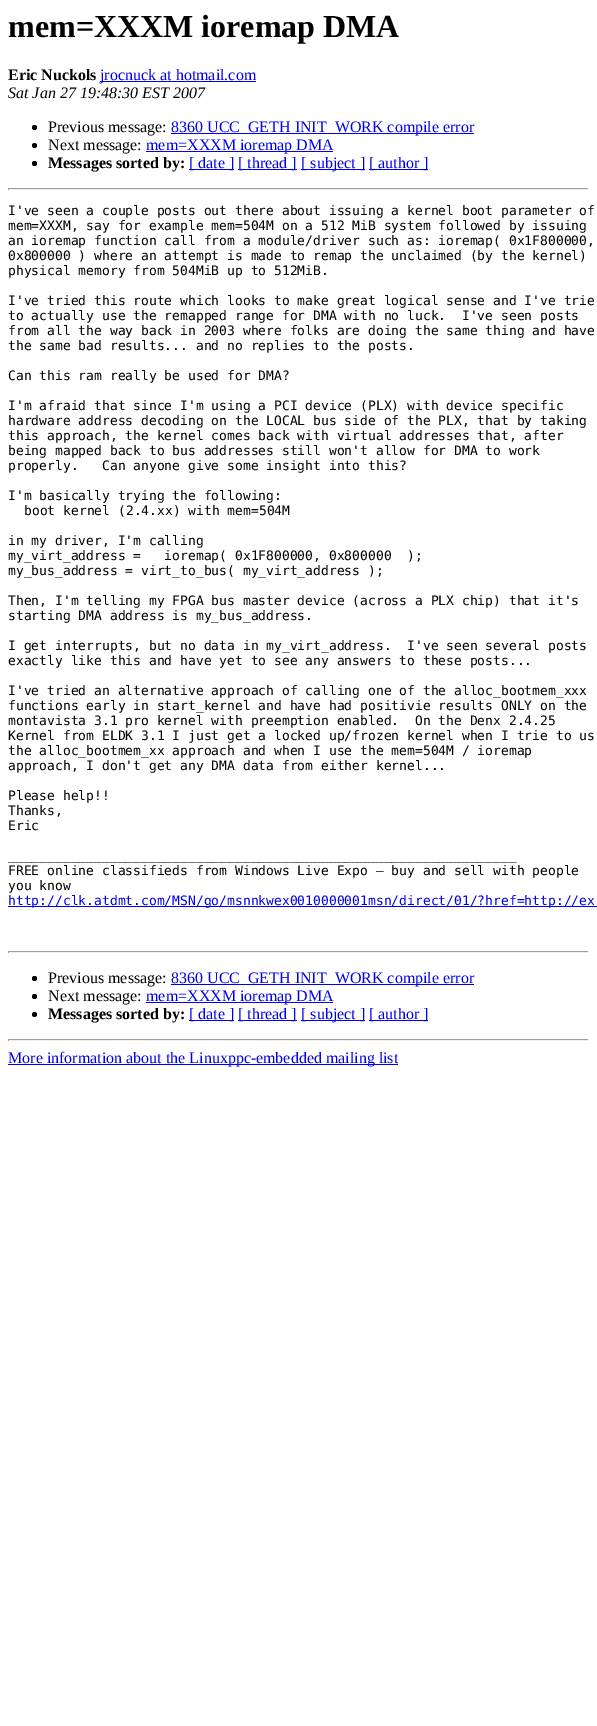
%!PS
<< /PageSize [597 1726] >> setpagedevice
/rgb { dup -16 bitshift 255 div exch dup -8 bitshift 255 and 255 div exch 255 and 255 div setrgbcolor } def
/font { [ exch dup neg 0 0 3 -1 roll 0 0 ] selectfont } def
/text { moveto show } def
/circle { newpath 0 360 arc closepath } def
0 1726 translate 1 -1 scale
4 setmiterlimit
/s1 { /LiberationSerif-Bold 32 font 16#000000 rgb } def
/s2 { /LiberationSerif-Bold 16 font 16#000000 rgb } def
/s3 { /LiberationSerif-Regular 16 font 16#0000EE rgb } def
/s4 { /LiberationSerif-Italic 16 font 16#000000 rgb } def
/s5 { /LiberationSerif-Regular 16 font 16#000000 rgb } def
/s6 { /DejaVuSansMono-Regular 13 font 16#000000 rgb } def
/s7 { /DejaVuSansMono-Regular 13 font 16#0000EE rgb } def
16#FFFFFF rgb
0 0 597 1726 rectfill
s1
(mem=XXXM ioremap DMA) 8 37 text
s2
(Eric Nuckols) 8 80 text
16#0000EE rgb
100 81 156 1 rectfill
s3
(jrocnuck at hotmail.com) 100 80 text
s4
(Sat Jan 27 19:48:30 EST 2007) 8 98 text
34.5 127.5 2.5 circle fill
s5
(Previous message:) 48 132 text
16#0000EE rgb
171 133 303 1 rectfill
(8360 UCC_GETH INIT_WORK compile error) 171 132 text
16#000000 rgb
34.5 145.5 2.5 circle fill
(Next message:) 48 150 text
16#0000EE rgb
146 151 187 1 rectfill
(mem=XXXM ioremap DMA) 146 150 text
16#000000 rgb
34.5 163.5 2.5 circle fill
s2
(Messages sorted by:) 48 168 text
16#0000EE rgb
189 169 45 1 rectfill
s3
([ date ]) 189 168 text
238 169 59 1 rectfill
([ thread ]) 238 168 text
301 169 64 1 rectfill
([ subject ]) 301 168 text
369 169 59 1 rectfill
([ author ]) 369 168 text
16#9F9F9F rgb
8 188 581 1 rectfill
16#EEEEEE rgb
588 188 1 2 rectfill
8 189 581 1 rectfill
16#9F9F9F rgb
8 188 1 2 rectfill
s6
(I've seen a couple posts out there about issuing a kernel boot parameter of) 8 215 text
(mem=XXXM, say for example mem=504M on a 512 MiB system followed by issuing) 8 230 text
(an ioremap function call from a module/driver such as: ioremap\( 0x1F800000,) 8 245 text
(0x800000 \) where an attempt is made to remap the unclaimed \(by the kernel\)) 8 260 text
(physical memory from 504MiB up to 512MiB.) 8 275 text
(I've tried this route which looks to make great logical sense and I've trie) 8 305 text
(to actually use the remapped range for DMA with no luck.  I've seen posts) 8 320 text
(from all the way back in 2003 where folks are doing the same thing and have) 8 335 text
(the same bad results... and no replies to the posts.) 8 350 text
(Can this ram really be used for DMA?) 8 380 text
(I'm afraid that since I'm using a PCI device \(PLX\) with device specific) 8 410 text
(hardware address decoding on the LOCAL bus side of the PLX, that by taking) 8 425 text
(this approach, the kernel comes back with virtual addresses that, after) 8 440 text
(being mapped back to bus addresses still won't allow for DMA to work) 8 455 text
(properly.   Can anyone give some insight into this?) 8 470 text
(I'm basically trying the following:) 8 500 text
(boot kernel \(2.4.xx\) with mem=504M) 24 515 text
(in my driver, I'm calling) 8 545 text
(my_virt_address =   ioremap\( 0x1F800000, 0x800000  \);) 8 560 text
(my_bus_address = virt_to_bus\( my_virt_address \);) 8 575 text
(Then, I'm telling my FPGA bus master device \(across a PLX chip\) that it's) 8 605 text
(starting DMA address is my_bus_address.) 8 620 text
(I get interrupts, but no data in my_virt_address.  I've seen several posts) 8 650 text
(exactly like this and have yet to see any answers to these posts...) 8 665 text
(I've tried an alternative approach of calling one of the alloc_bootmem_xxx) 8 695 text
(functions early in start_kernel and have had positivie results ONLY on the) 8 710 text
(montavista 3.1 pro kernel with preemption enabled.  On the Denx 2.4.25) 8 725 text
(Kernel from ELDK 3.1 I just get a locked up/frozen kernel when I trie to us) 8 740 text
(the alloc_bootmem_xx approach and when I use the mem=504M / ioremap) 8 755 text
(approach, I don't get any DMA data from either kernel...) 8 770 text
(Please help!!) 8 800 text
(Thanks,) 8 815 text
(Eric) 8 830 text
(_________________________________________________________________) 8 860 text
(FREE online classifieds from Windows Live Expo – buy and sell with people) 8 875 text
(you know) 8 890 text
16#0000EE rgb
8 906 589 1 rectfill
(http://clk.atdmt.com/MSN/go/msnnkwex0010000001msn/direct/01/?href=http://ex) 8 905 text
16#9F9F9F rgb
8 951 581 1 rectfill
16#EEEEEE rgb
588 951 1 2 rectfill
8 952 581 1 rectfill
16#9F9F9F rgb
8 951 1 2 rectfill
16#000000 rgb
34.5 978.5 2.5 circle fill
s5
(Previous message:) 48 983 text
16#0000EE rgb
171 984 303 1 rectfill
(8360 UCC_GETH INIT_WORK compile error) 171 983 text
16#000000 rgb
34.5 996.5 2.5 circle fill
(Next message:) 48 1001 text
16#0000EE rgb
146 1002 187 1 rectfill
(mem=XXXM ioremap DMA) 146 1001 text
16#000000 rgb
34.5 1014.5 2.5 circle fill
s2
(Messages sorted by:) 48 1019 text
16#0000EE rgb
189 1020 45 1 rectfill
s3
([ date ]) 189 1019 text
238 1020 59 1 rectfill
([ thread ]) 238 1019 text
301 1020 64 1 rectfill
([ subject ]) 301 1019 text
369 1020 59 1 rectfill
([ author ]) 369 1019 text
16#9F9F9F rgb
8 1039 581 1 rectfill
16#EEEEEE rgb
588 1039 1 2 rectfill
8 1040 581 1 rectfill
16#9F9F9F rgb
8 1039 1 2 rectfill
16#0000EE rgb
8 1064 390 1 rectfill
(More information about the Linuxppc-embedded mailing list) 8 1063 text
showpage
